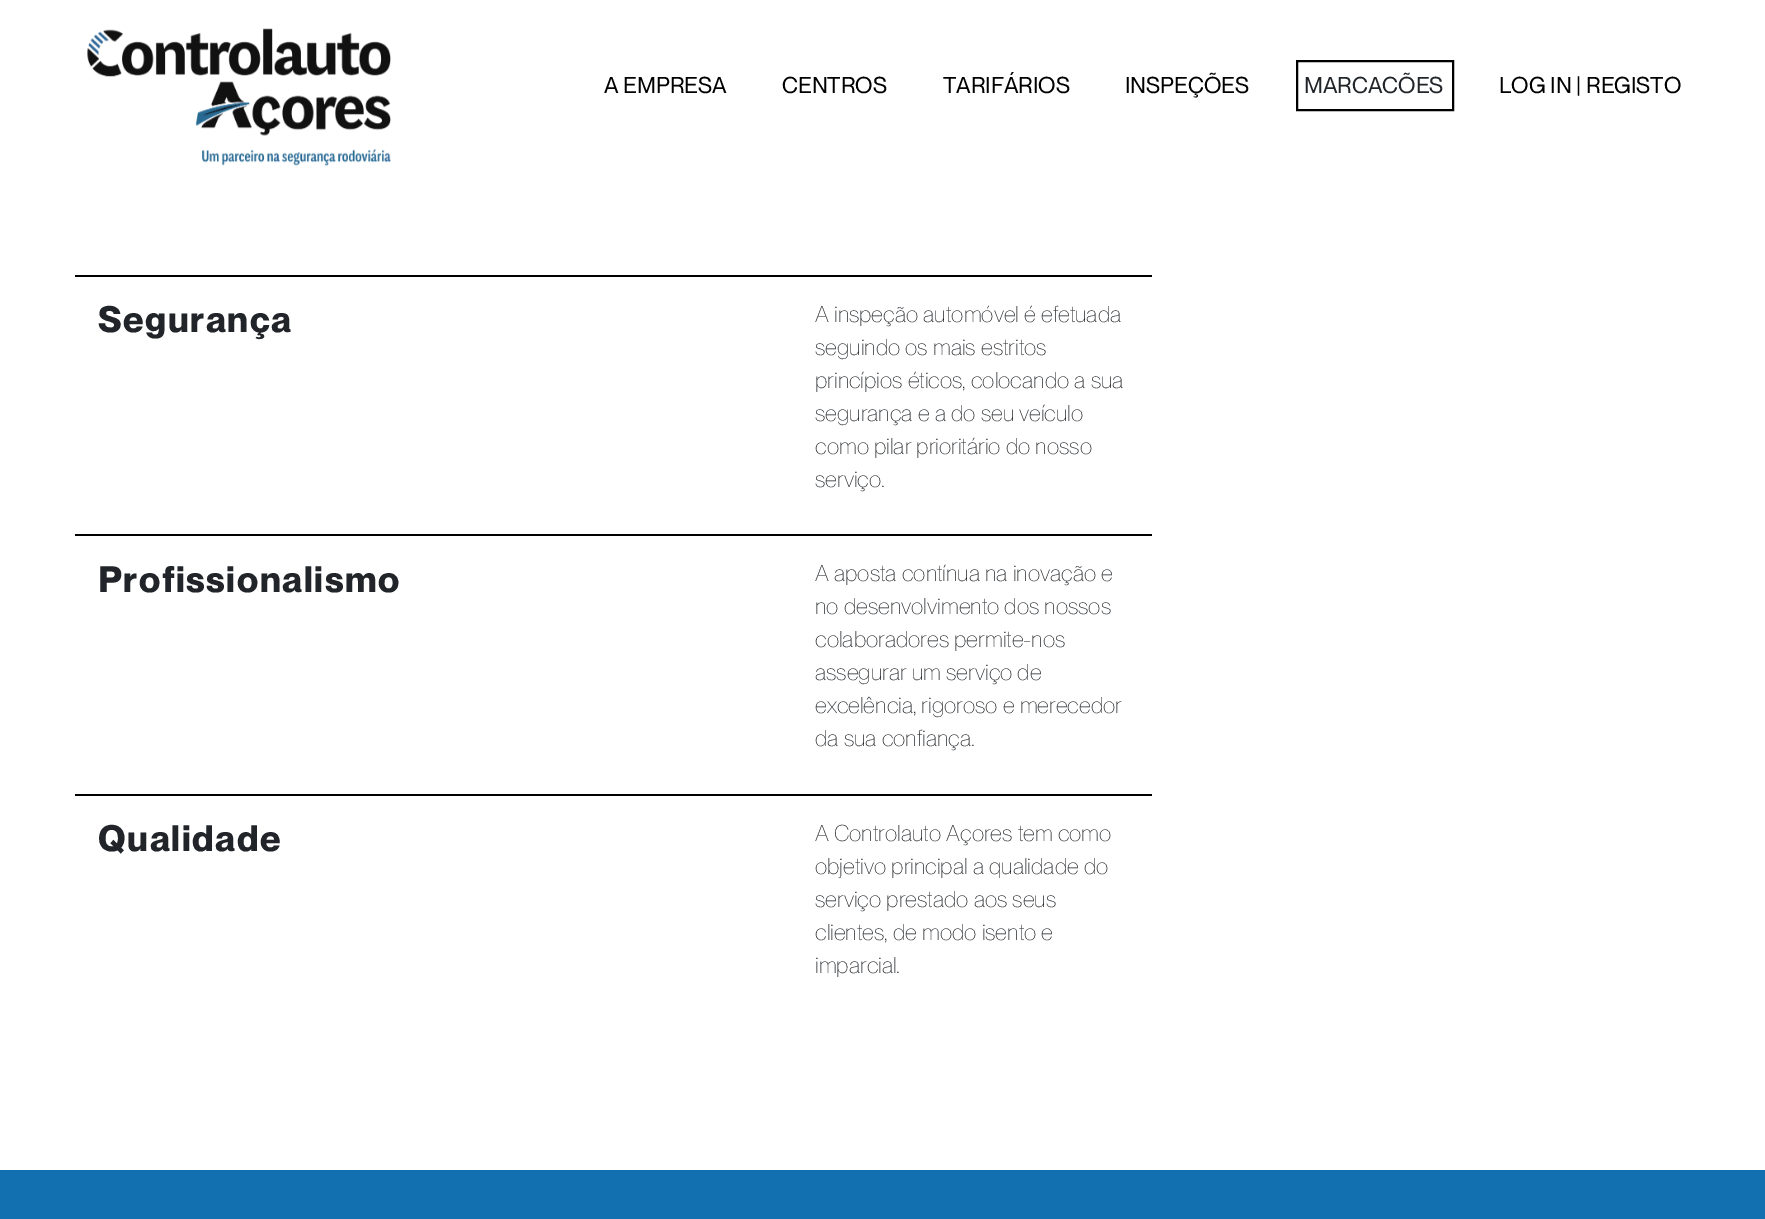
%!PS
<< /PageSize [1765 1219] >> setpagedevice
/rgb { dup -16 bitshift 255 div exch dup -8 bitshift 255 and 255 div exch 255 and 255 div setrgbcolor } def
/font { [ exch dup neg 0 0 3 -1 roll 0 0 ] selectfont } def
/text { moveto show } def
/picture { 5 dict begin { /h /w /y /x /name } { exch def } forall
  gsave x y translate w h scale
  w h 8 [w 0 0 h 0 0] name (r) file false 3 colorimage grestore end } def
0 1219 translate 1 -1 scale
4 setmiterlimit
/s1 { /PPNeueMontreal-Regular 22.5 font 16#000000 rgb } def
/s2 { /PPNeueMontreal-Regular 22.5 font 16#212529 rgb } def
/s3 { /PPNeueMontreal-Thin 22.5 font 16#212529 rgb } def
16#FFFFFF rgb
0 0 1765 1219 rectfill
(pic1.raw) 87 28 304 138 picture
s1
(A EMPRESA) 604 93 text
(CENTROS) 782 93 text
(TARIFÁRIOS) 943 93 text
(INSPEÇÕES) 1125 93 text
2 setlinewidth
1297 61 156 49 rectstroke
s2
(MARCACÕES) 1304 93 text
s1
(LOG IN | REGISTO) 1499 93 text
75 275 1077 2 rectfill
/PPNeueMontreal-Bold 36 font
16#212529 rgb
98 332 moveto 1.5 0 (Segurança) ashow
s3
(A inspeção automóvel é efetuada) 815 322 text
(seguindo os mais estritos) 815 355 text
(princípios éticos, colocando a sua) 815 388 text
(segurança e a do seu veículo) 815 421 text
(como pilar prioritário do nosso) 815 454 text
(serviço.) 815 487 text
16#000000 rgb
75 534 1077 2 rectfill
/PPNeueMontreal-Bold 36 font
16#212529 rgb
98 592 moveto 1.5 0 (Profissionalismo) ashow
s3
(A aposta contínua na inovação e) 815 581 text
(no desenvolvimento dos nossos) 815 614 text
(colaboradores permite-nos) 815 647 text
(assegurar um serviço de) 815 680 text
(excelência, rigoroso e merecedor) 815 713 text
(da sua confiança.) 815 746 text
16#000000 rgb
75 794 1077 2 rectfill
/PPNeueMontreal-Bold 36 font
16#212529 rgb
98 851 moveto 1.5 0 (Qualidade) ashow
s3
(A Controlauto Açores tem como) 815 841 text
(objetivo principal a qualidade do) 815 874 text
(serviço prestado aos seus) 815 907 text
(clientes, de modo isento e) 815 940 text
(imparcial.) 815 973 text
16#1270B0 rgb
0 1170 1765 49 rectfill
showpage
